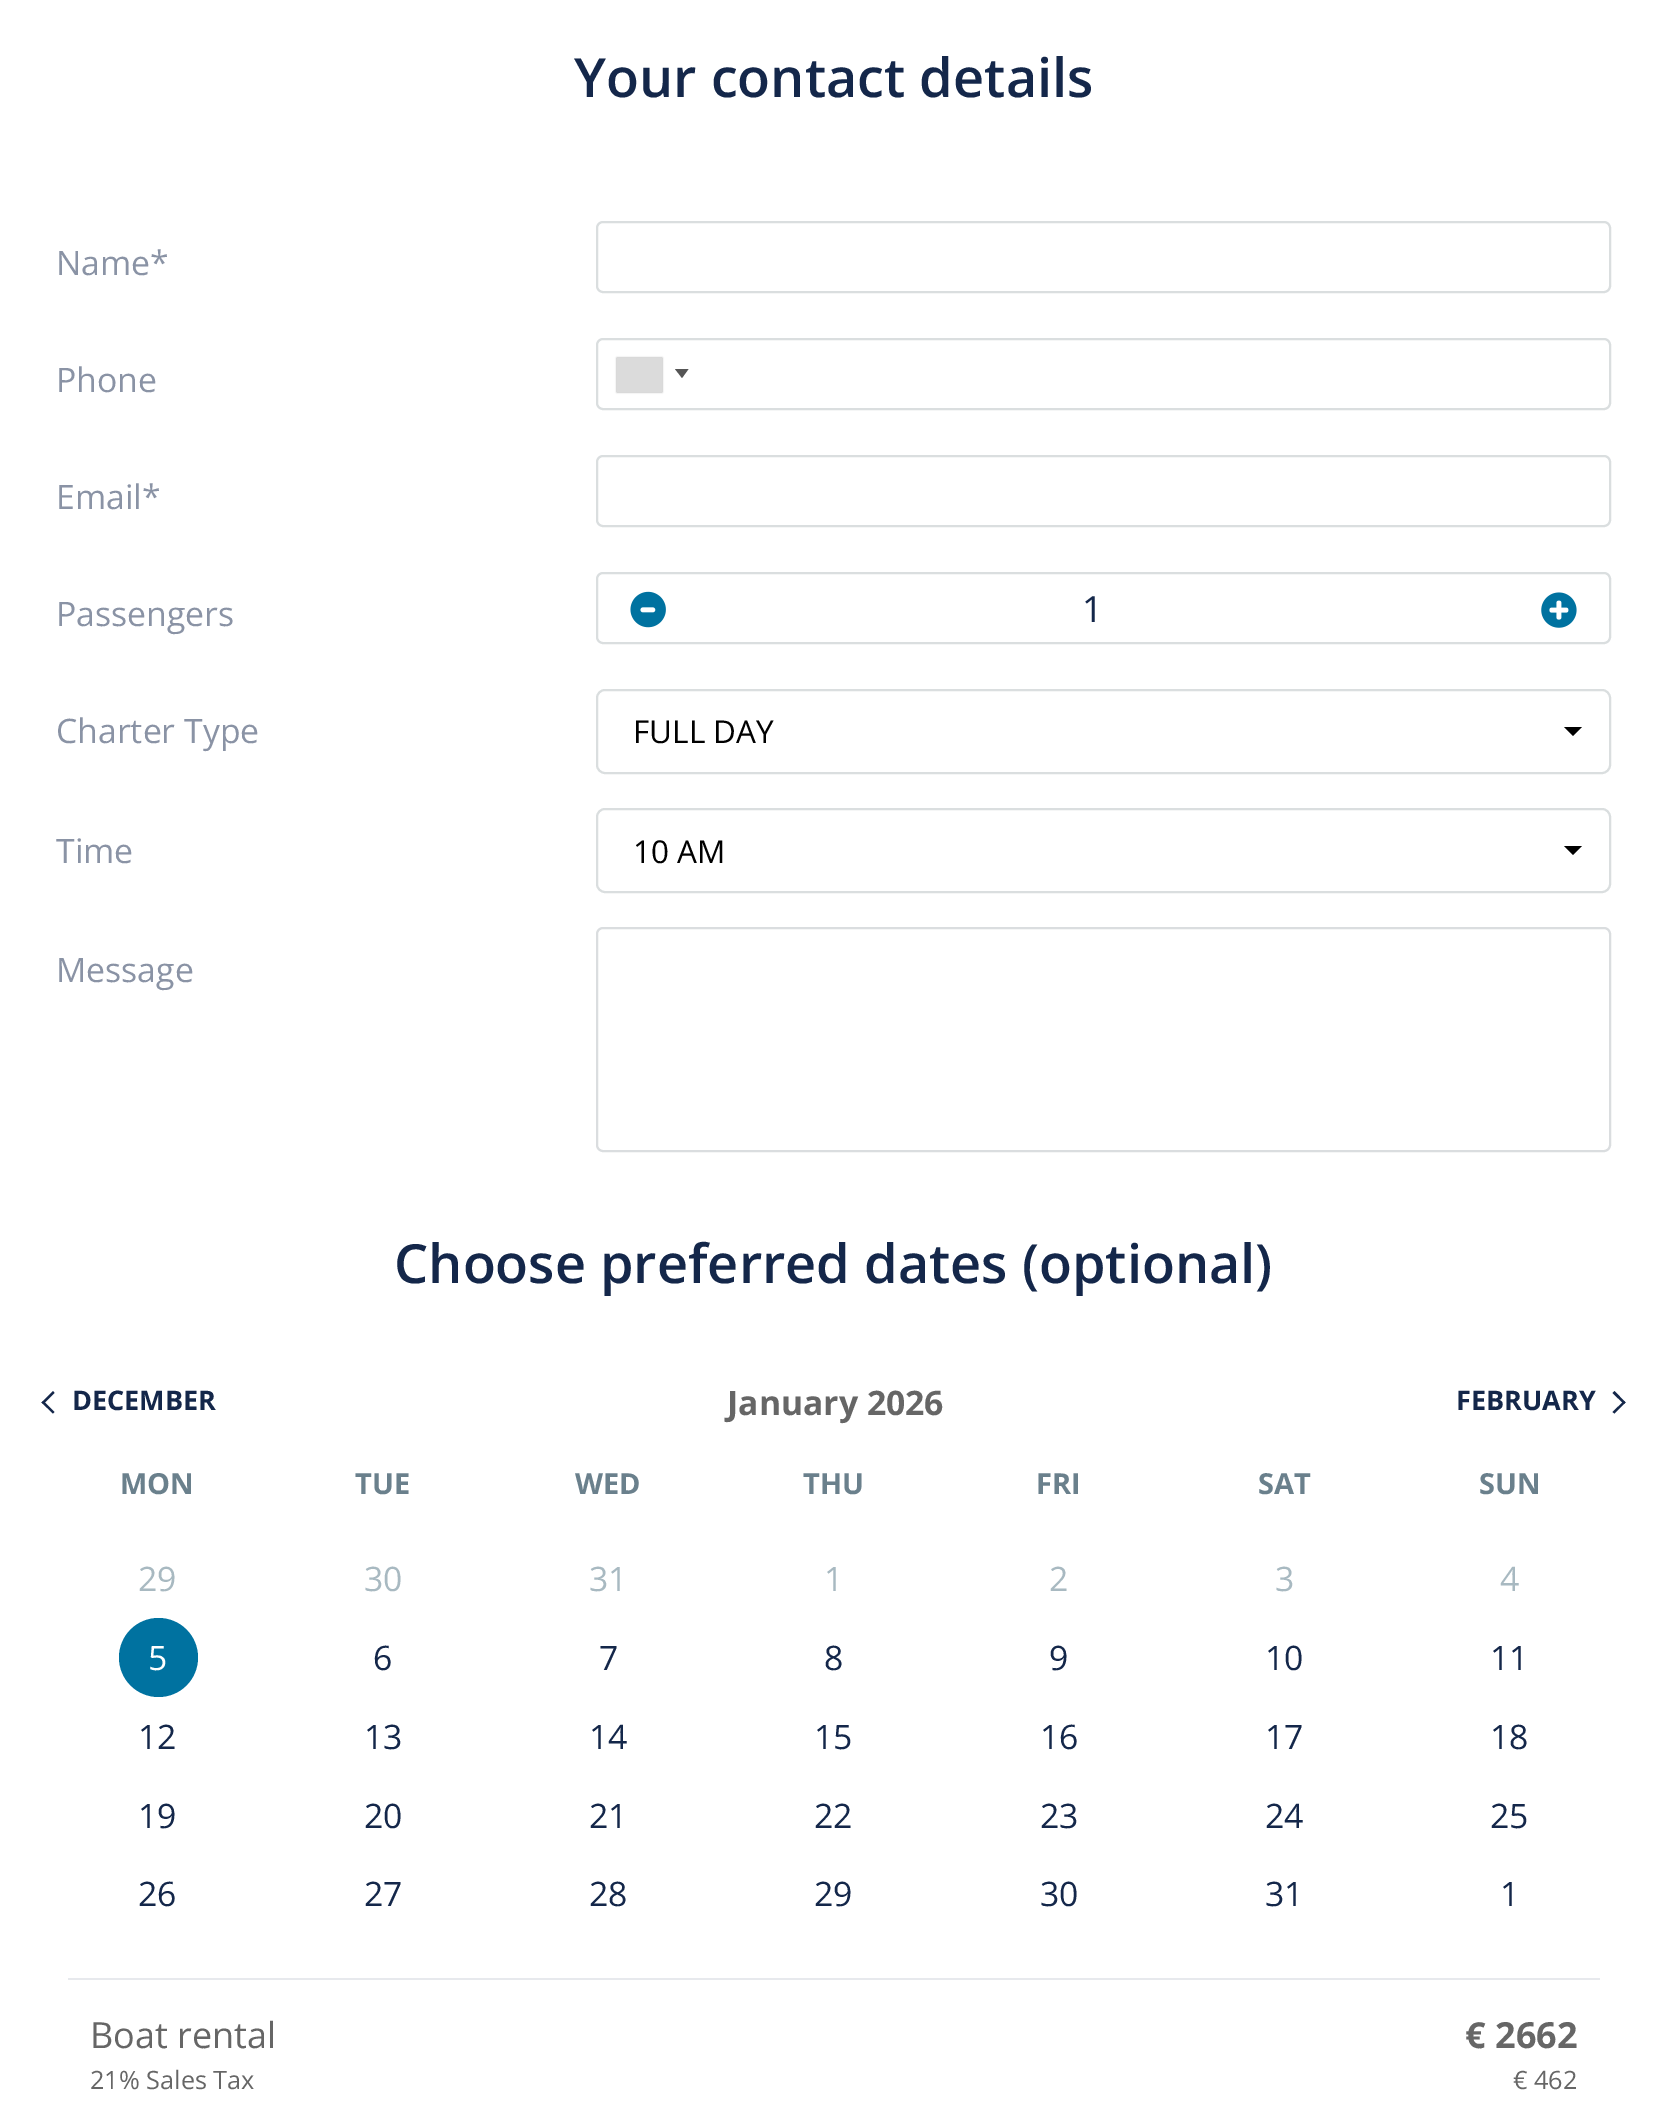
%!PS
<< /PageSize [1666 2101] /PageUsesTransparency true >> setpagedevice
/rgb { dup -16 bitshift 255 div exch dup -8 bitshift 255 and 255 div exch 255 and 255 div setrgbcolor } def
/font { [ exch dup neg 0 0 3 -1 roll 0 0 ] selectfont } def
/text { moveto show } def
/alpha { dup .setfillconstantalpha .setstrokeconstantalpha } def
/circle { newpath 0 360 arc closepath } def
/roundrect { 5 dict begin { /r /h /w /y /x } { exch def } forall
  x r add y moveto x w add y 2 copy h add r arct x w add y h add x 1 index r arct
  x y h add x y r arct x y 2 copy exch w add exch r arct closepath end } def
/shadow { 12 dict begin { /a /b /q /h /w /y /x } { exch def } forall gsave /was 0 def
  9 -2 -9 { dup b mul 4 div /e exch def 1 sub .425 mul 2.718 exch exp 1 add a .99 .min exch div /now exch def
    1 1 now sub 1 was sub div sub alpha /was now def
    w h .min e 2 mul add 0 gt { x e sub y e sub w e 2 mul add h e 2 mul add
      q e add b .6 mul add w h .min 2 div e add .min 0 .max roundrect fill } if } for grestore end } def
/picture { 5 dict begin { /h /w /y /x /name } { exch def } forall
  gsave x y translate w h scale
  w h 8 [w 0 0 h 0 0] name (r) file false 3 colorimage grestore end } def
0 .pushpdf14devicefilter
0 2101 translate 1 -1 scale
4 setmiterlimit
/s1 { /OpenSans-SemiBold 54 font 16#14274A rgb } def
/s2 { /OpenSans-Regular 33.75 font 16#8A93A5 rgb } def
/s3 { /OpenSans-Regular 36 font 16#14274A rgb } def
/s4 { /OpenSans-Regular 31.5 font 16#000000 rgb } def
/s5 { /OpenSans-Bold 27 font 16#14274A rgb } def
/s6 { /OpenSans-Bold 33.75 font 16#666666 rgb } def
/s7 { /OpenSans-Bold 29 font 16#6A808C rgb } def
/s8 { /OpenSans-Regular 33.75 font 16#A8B9C1 rgb } def
/s9 { /OpenSans-Regular 33.75 font 16#FFFFFF rgb } def
/s10 { /OpenSans-Regular 33.75 font 16#14274A rgb } def
/s11 { /OpenSans-Regular 36 font 16#666666 rgb } def
/s12 { /OpenSans-Bold 36 font 16#666666 rgb } def
/s13 { /OpenSans-Regular 25.25 font 16#666666 rgb } def
16#FFFFFF rgb
0 0 1666 2101 rectfill
s1
(Your contact details) 574 97 text
s2
(Name*) 56 275 text
16#DADEDF rgb
2 setlinewidth
597 222 1013 70 6 roundrect stroke
s2
(Phone) 56 392 text
16#DADEDF rgb
597 339 1013 70 6 roundrect stroke
16#888888 rgb
617 358 45 34 0 1 1 shadow
16#DBDBDB rgb
617 358 45 34 rectfill
16#555555 rgb
675 369 moveto 688.5 369 lineto 682 378 lineto closepath fill
s2
(Email*) 56 509 text
16#DADEDF rgb
597 456 1013 70 6 roundrect stroke
s2
(Passengers) 56 626 text
16#DADEDF rgb
597 573 1013 70 6 roundrect stroke
(pic1.raw) 630 591 36 37 picture
s3
(1) 1082 622 text
(pic2.raw) 1541 592 36 36 picture
s2
(Charter Type) 56 743 text
16#DADEDF rgb
597 690 1013 83 8 roundrect stroke
s4
(FULL DAY) 633 743 text
1564 727 moveto 1582 727 lineto 1573 736 lineto closepath fill
s2
(Time) 56 863 text
16#DADEDF rgb
597 809 1013 83 8 roundrect stroke
s4
(10 AM) 633 863 text
1564 846 moveto 1582 846 lineto 1573 855 lineto closepath fill
s2
(Message) 56 982 text
16#DADDDF rgb
597 928 1013 223 6 roundrect stroke
s1
(Choose preferred dates \(optional\)) 394 1283 text
43.5 1401 moveto 54.5 1412 lineto 53 1413.5 lineto 41.5 1402.5 lineto closepath fill
53 1391 moveto 54.5 1393 lineto 43.5 1404 lineto 41.5 1402.5 lineto closepath fill
s5
(DECEMBER) 72 1410 text
s6
(January 2026) 727 1415 text
s5
(FEBRUARY) 1456 1410 text
1614.5 1391 moveto 1625.5 1402.5 lineto 1624 1404 lineto 1612.5 1393 lineto closepath fill
1624 1401 moveto 1625.5 1402.5 lineto 1614.5 1413.5 lineto 1612.5 1412 lineto closepath fill
s7
(MON) 120 1494 text
(TUE) 355 1494 text
(WED) 575 1494 text
(THU) 803 1494 text
(FRI) 1036 1494 text
(SAT) 1258 1494 text
(SUN) 1479 1494 text
s8
(29) 138 1591 text
(30) 364 1591 text
(31) 589 1591 text
(1) 824 1591 text
(2) 1049 1591 text
(3) 1275 1591 text
(4) 1500 1591 text
16#0072A0 rgb
158.5 1657.5 39.5 circle fill
s9
(5) 148 1670 text
s10
(6) 373 1670 text
(7) 599 1670 text
(8) 824 1670 text
(9) 1049 1670 text
(10) 1265 1670 text
(11) 1490 1670 text
(12) 138 1749 text
(13) 364 1749 text
(14) 589 1749 text
(15) 814 1749 text
(16) 1040 1749 text
(17) 1265 1749 text
(18) 1490 1749 text
(19) 138 1828 text
(20) 364 1828 text
(21) 589 1828 text
(22) 814 1828 text
(23) 1040 1828 text
(24) 1265 1828 text
(25) 1490 1828 text
(26) 138 1906 text
(27) 364 1906 text
(28) 589 1906 text
(29) 814 1906 text
(30) 1040 1906 text
(31) 1265 1906 text
(1) 1500 1906 text
16#E7E9ED rgb
68 1978 1532 2 rectfill
s11
(Boat rental) 90 2048 text
s12
(€ 2662) 1465 2048 text
s13
(21% Sales Tax) 90 2089 text
(€ 462) 1513 2089 text
.poppdf14devicefilter showpage
